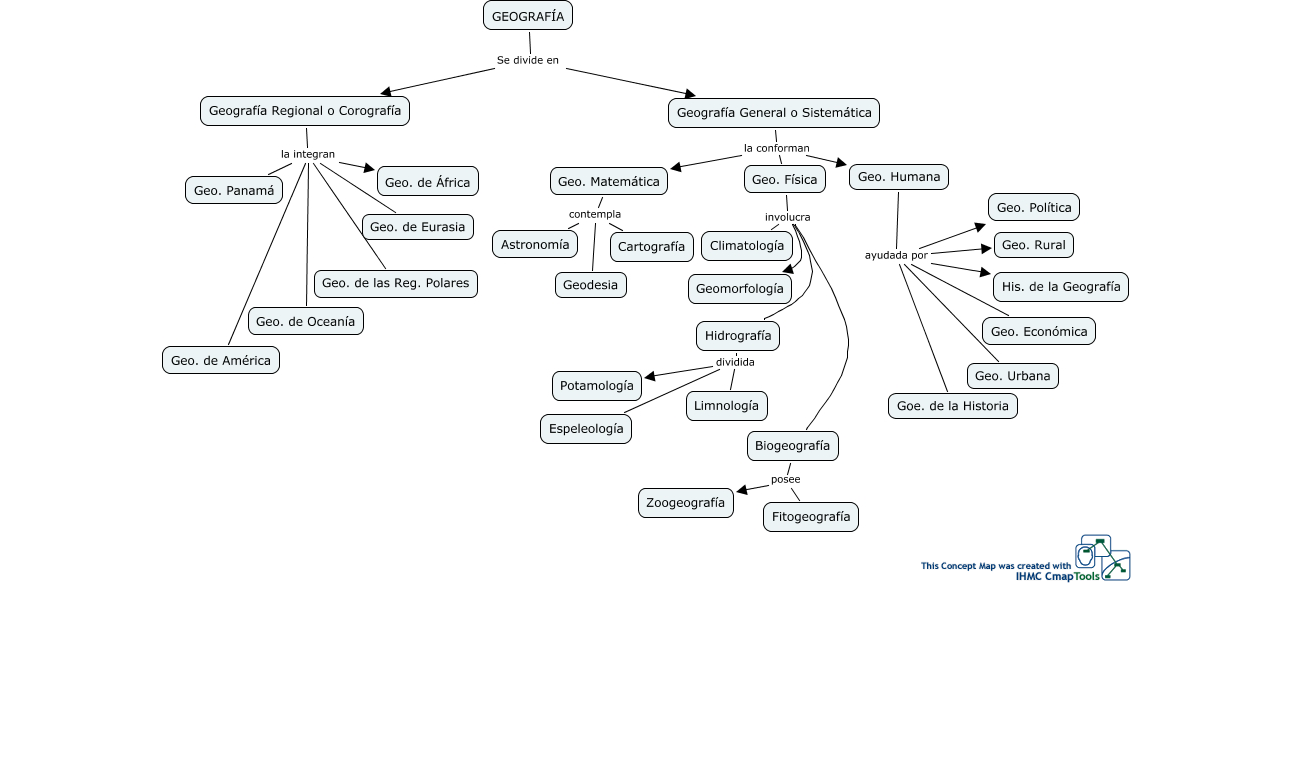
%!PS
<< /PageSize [1293 768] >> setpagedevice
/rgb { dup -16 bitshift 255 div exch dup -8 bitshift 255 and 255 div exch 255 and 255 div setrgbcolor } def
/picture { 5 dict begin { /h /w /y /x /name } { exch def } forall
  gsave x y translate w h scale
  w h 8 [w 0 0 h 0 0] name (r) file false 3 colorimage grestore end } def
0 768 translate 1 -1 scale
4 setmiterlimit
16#FFFFFF rgb
0 0 1293 768 rectfill
(pic1.raw) 162 0 967 532 picture
(pic2.raw) 921 534 210 49 picture
showpage
